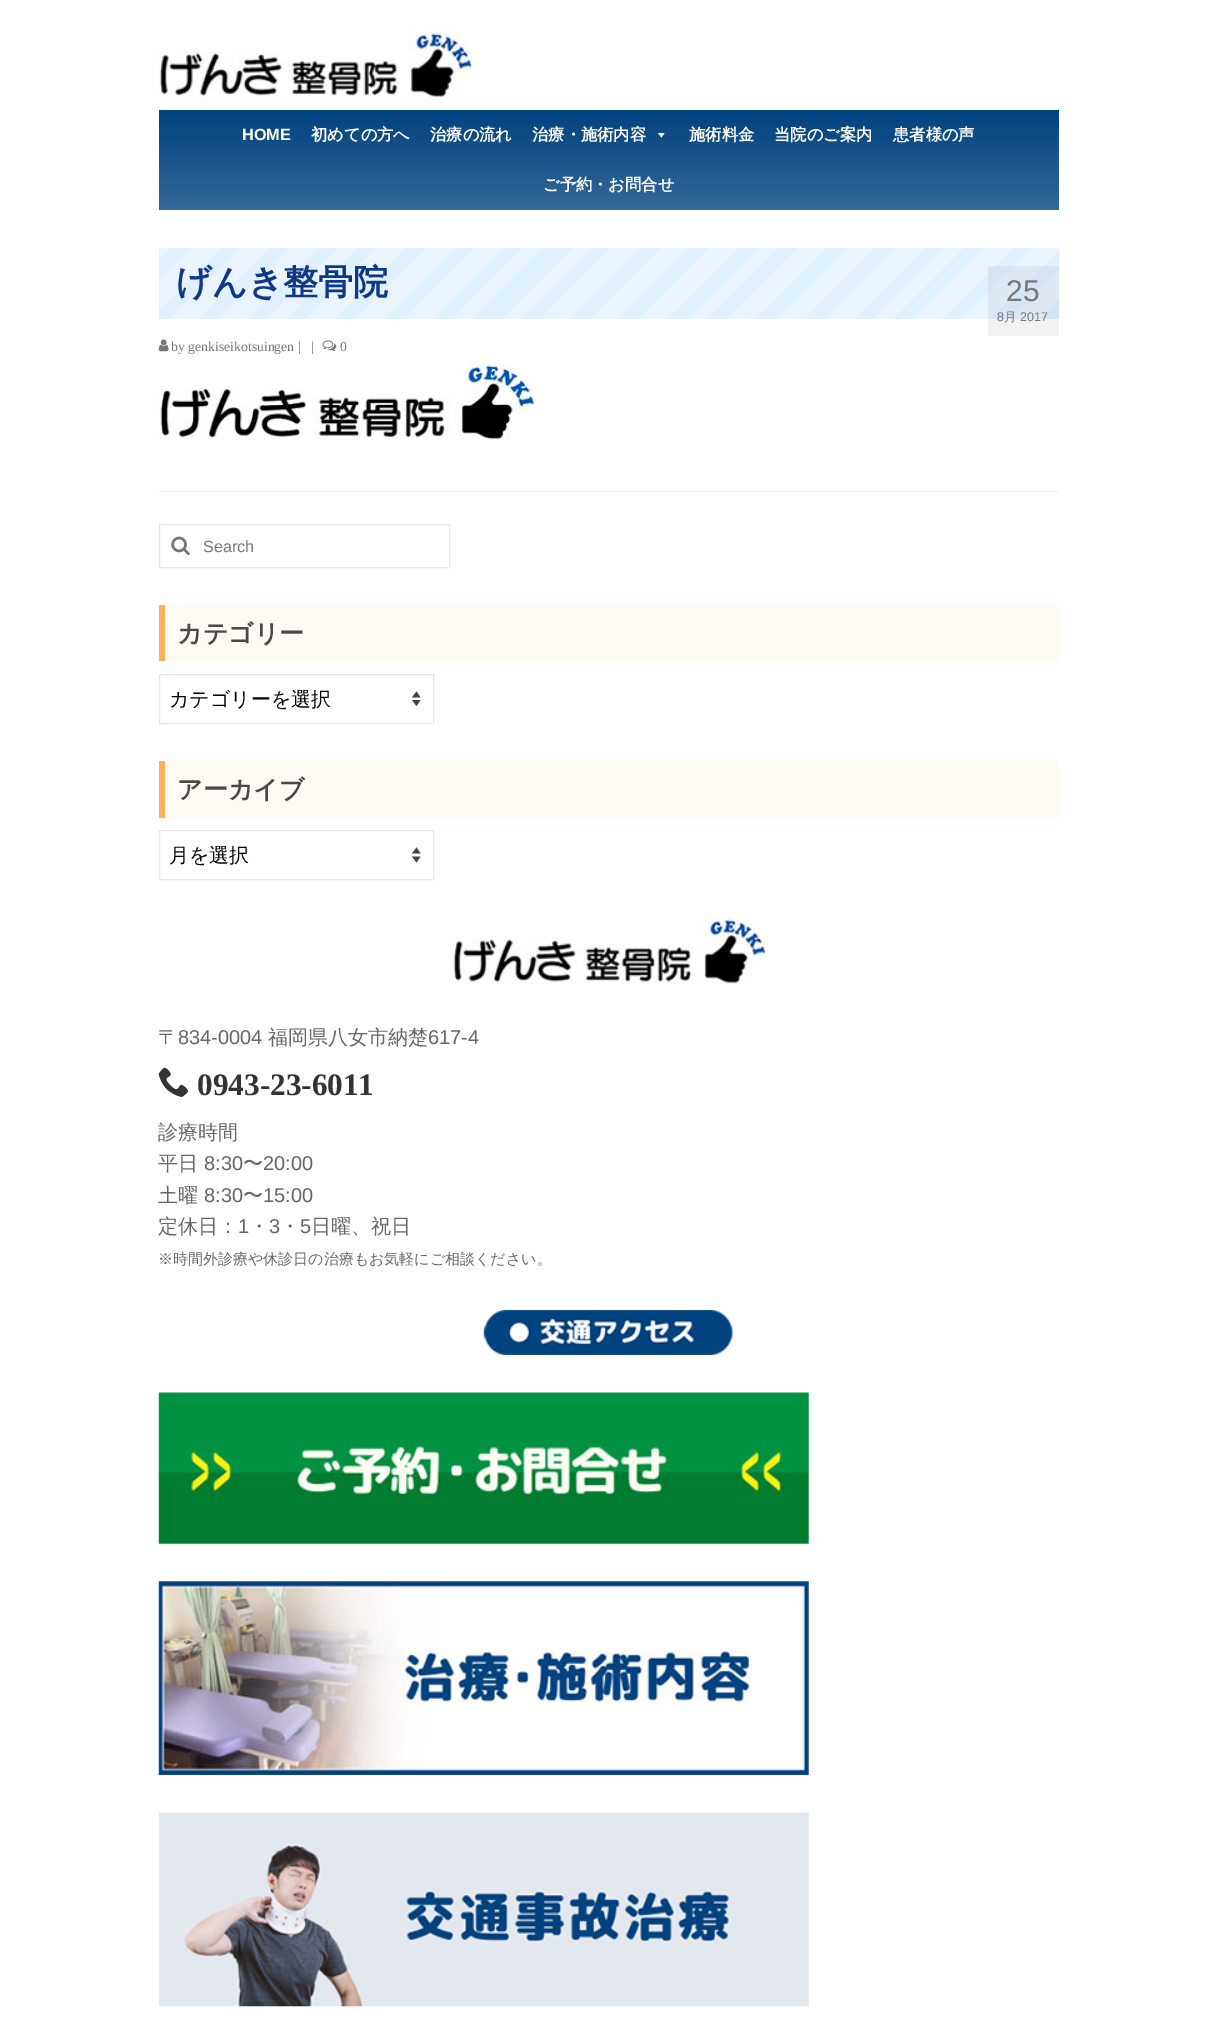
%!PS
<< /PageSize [1216 2021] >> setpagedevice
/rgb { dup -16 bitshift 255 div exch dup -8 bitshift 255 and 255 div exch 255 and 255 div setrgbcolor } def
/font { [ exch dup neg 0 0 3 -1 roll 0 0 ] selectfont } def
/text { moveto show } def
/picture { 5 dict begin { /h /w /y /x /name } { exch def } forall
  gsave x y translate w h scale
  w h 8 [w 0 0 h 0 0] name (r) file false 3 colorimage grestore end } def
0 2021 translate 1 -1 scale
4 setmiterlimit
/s1 { /LiberationSans-Bold 16.25 font 16#FFFFFF rgb } def
/s2 { /WenQuanYiZenHei-Bold 16.25 font 16#FFFFFF rgb } def
/s3 { /WenQuanYiZenHei-Bold 35 font 16#103889 rgb } def
/s4 { /LiberationSerif-Regular 13.75 font 16#777777 rgb } def
/s5 { /LiberationSans-Regular 30 font 16#777777 rgb } def
/s6 { /LiberationSans-Regular 12.5 font 16#777777 rgb } def
/s7 { /WenQuanYiZenHei-Medium 12.5 font 16#777777 rgb } def
/s8 { /LiberationSans-Regular 16.25 font 16#777777 rgb } def
/s9 { /WenQuanYiZenHei-Bold 25 font 16#494949 rgb } def
/s10 { /WenQuanYiZenHei-Medium 20 font 16#000000 rgb } def
/s11 { /WenQuanYiZenHei-Medium 20 font 16#666666 rgb } def
/s12 { /LiberationSans-Regular 20 font 16#666666 rgb } def
/s13 { /LiberationSerif-Bold 31.25 font 16#333333 rgb } def
/s14 { /WenQuanYiZenHei-Medium 15 font 16#666666 rgb } def
16#FFFFFF rgb
0 0 1216 2021 rectfill
16#F2F2F2 rgb
988 319 71 17 rectfill
(pic1.raw) 159 31 313 67 picture
gsave 159 110 moveto 1059 110 lineto 1059 210 lineto 159 210 lineto closepath clip newpath
<< /ShadingType 2 /ColorSpace /DeviceRGB /Coords [609 110 609 210] /Extend [true true] /Function << /FunctionType 2 /Domain [0 1] /C0 [0.004 0.259 0.498] /C1 [0.204 0.408 0.6] /N 1 >> >> shfill grestore
s1
(HOME) 242 140 text
s2
(初めての方へ) 311 140 text
(治療の流れ) 430 140 text
(治療・施術内容) 532 140 text
664.5 133 moveto 661.5 137.5 lineto 658 133 lineto closepath fill
(施術料金) 689 140 text
(当院のご案内) 774 140 text
(患者様の声) 893 140 text
(ご予約・お問合せ) 543 190 text
gsave 159 248 moveto 1059 248 lineto 1059 319 lineto 159 319 lineto closepath clip newpath
<< /ShadingType 2 /ColorSpace /DeviceRGB /Coords [852 526 363 37] /Extend [true true] /Function << /FunctionType 3 /Domain [0 1] /Functions [<< /FunctionType 2 /Domain [0 1] /C0 [0.875 0.941 1] /C1 [0.875 0.941 1] /N 1 >> << /FunctionType 2 /Domain [0 1] /C0 [0.875 0.941 1] /C1 [0.875 0.941 1] /N 1 >> << /FunctionType 2 /Domain [0 1] /C0 [0.914 0.957 1] /C1 [0.914 0.957 1] /N 1 >> << /FunctionType 2 /Domain [0 1] /C0 [0.914 0.957 1] /C1 [0.914 0.957 1] /N 1 >> << /FunctionType 2 /Domain [0 1] /C0 [0.914 0.957 1] /C1 [0.914 0.957 1] /N 1 >> << /FunctionType 2 /Domain [0 1] /C0 [0.875 0.941 1] /C1 [0.875 0.941 1] /N 1 >> << /FunctionType 2 /Domain [0 1] /C0 [0.875 0.941 1] /C1 [0.875 0.941 1] /N 1 >> << /FunctionType 2 /Domain [0 1] /C0 [0.914 0.957 1] /C1 [0.914 0.957 1] /N 1 >> << /FunctionType 2 /Domain [0 1] /C0 [0.914 0.957 1] /C1 [0.914 0.957 1] /N 1 >> << /FunctionType 2 /Domain [0 1] /C0 [0.914 0.957 1] /C1 [0.914 0.957 1] /N 1 >> << /FunctionType 2 /Domain [0 1] /C0 [0.875 0.941 1] /C1 [0.875 0.941 1] /N 1 >> << /FunctionType 2 /Domain [0 1] /C0 [0.875 0.941 1] /C1 [0.875 0.941 1] /N 1 >> << /FunctionType 2 /Domain [0 1] /C0 [0.914 0.957 1] /C1 [0.914 0.957 1] /N 1 >> << /FunctionType 2 /Domain [0 1] /C0 [0.914 0.957 1] /C1 [0.914 0.957 1] /N 1 >> << /FunctionType 2 /Domain [0 1] /C0 [0.914 0.957 1] /C1 [0.914 0.957 1] /N 1 >> << /FunctionType 2 /Domain [0 1] /C0 [0.875 0.941 1] /C1 [0.875 0.941 1] /N 1 >> << /FunctionType 2 /Domain [0 1] /C0 [0.875 0.941 1] /C1 [0.875 0.941 1] /N 1 >> << /FunctionType 2 /Domain [0 1] /C0 [0.914 0.957 1] /C1 [0.914 0.957 1] /N 1 >> << /FunctionType 2 /Domain [0 1] /C0 [0.914 0.957 1] /C1 [0.914 0.957 1] /N 1 >> << /FunctionType 2 /Domain [0 1] /C0 [0.875 0.941 1] /C1 [0.875 0.941 1] /N 1 >> << /FunctionType 2 /Domain [0 1] /C0 [0.875 0.941 1] /C1 [0.875 0.941 1] /N 1 >> << /FunctionType 2 /Domain [0 1] /C0 [0.914 0.957 1] /C1 [0.914 0.957 1] /N 1 >> << /FunctionType 2 /Domain [0 1] /C0 [0.914 0.957 1] /C1 [0.914 0.957 1] /N 1 >> << /FunctionType 2 /Domain [0 1] /C0 [0.914 0.957 1] /C1 [0.914 0.957 1] /N 1 >> << /FunctionType 2 /Domain [0 1] /C0 [0.875 0.941 1] /C1 [0.875 0.941 1] /N 1 >> << /FunctionType 2 /Domain [0 1] /C0 [0.875 0.941 1] /C1 [0.875 0.941 1] /N 1 >> << /FunctionType 2 /Domain [0 1] /C0 [0.914 0.957 1] /C1 [0.914 0.957 1] /N 1 >> << /FunctionType 2 /Domain [0 1] /C0 [0.914 0.957 1] /C1 [0.914 0.957 1] /N 1 >> << /FunctionType 2 /Domain [0 1] /C0 [0.914 0.957 1] /C1 [0.914 0.957 1] /N 1 >> << /FunctionType 2 /Domain [0 1] /C0 [0.875 0.941 1] /C1 [0.875 0.941 1] /N 1 >> << /FunctionType 2 /Domain [0 1] /C0 [0.875 0.941 1] /C1 [0.875 0.941 1] /N 1 >> << /FunctionType 2 /Domain [0 1] /C0 [0.914 0.957 1] /C1 [0.914 0.957 1] /N 1 >> << /FunctionType 2 /Domain [0 1] /C0 [0.914 0.957 1] /C1 [0.914 0.957 1] /N 1 >> << /FunctionType 2 /Domain [0 1] /C0 [0.914 0.957 1] /C1 [0.914 0.957 1] /N 1 >> << /FunctionType 2 /Domain [0 1] /C0 [0.875 0.941 1] /C1 [0.875 0.941 1] /N 1 >> << /FunctionType 2 /Domain [0 1] /C0 [0.875 0.941 1] /C1 [0.875 0.941 1] /N 1 >> << /FunctionType 2 /Domain [0 1] /C0 [0.914 0.957 1] /C1 [0.914 0.957 1] /N 1 >> << /FunctionType 2 /Domain [0 1] /C0 [0.914 0.957 1] /C1 [0.914 0.957 1] /N 1 >> << /FunctionType 2 /Domain [0 1] /C0 [0.875 0.941 1] /C1 [0.875 0.941 1] /N 1 >> << /FunctionType 2 /Domain [0 1] /C0 [0.875 0.941 1] /C1 [0.875 0.941 1] /N 1 >> << /FunctionType 2 /Domain [0 1] /C0 [0.914 0.957 1] /C1 [0.914 0.957 1] /N 1 >> << /FunctionType 2 /Domain [0 1] /C0 [0.914 0.957 1] /C1 [0.914 0.957 1] /N 1 >> << /FunctionType 2 /Domain [0 1] /C0 [0.914 0.957 1] /C1 [0.914 0.957 1] /N 1 >> << /FunctionType 2 /Domain [0 1] /C0 [0.875 0.941 1] /C1 [0.875 0.941 1] /N 1 >> << /FunctionType 2 /Domain [0 1] /C0 [0.875 0.941 1] /C1 [0.875 0.941 1] /N 1 >> << /FunctionType 2 /Domain [0 1] /C0 [0.914 0.957 1] /C1 [0.914 0.957 1] /N 1 >> << /FunctionType 2 /Domain [0 1] /C0 [0.914 0.957 1] /C1 [0.914 0.957 1] /N 1 >> << /FunctionType 2 /Domain [0 1] /C0 [0.914 0.957 1] /C1 [0.914 0.957 1] /N 1 >> << /FunctionType 2 /Domain [0 1] /C0 [0.875 0.941 1] /C1 [0.875 0.941 1] /N 1 >> << /FunctionType 2 /Domain [0 1] /C0 [0.875 0.941 1] /C1 [0.875 0.941 1] /N 1 >> << /FunctionType 2 /Domain [0 1] /C0 [0.914 0.957 1] /C1 [0.914 0.957 1] /N 1 >> << /FunctionType 2 /Domain [0 1] /C0 [0.914 0.957 1] /C1 [0.914 0.957 1] /N 1 >> << /FunctionType 2 /Domain [0 1] /C0 [0.914 0.957 1] /C1 [0.914 0.957 1] /N 1 >> << /FunctionType 2 /Domain [0 1] /C0 [0.875 0.941 1] /C1 [0.875 0.941 1] /N 1 >> << /FunctionType 2 /Domain [0 1] /C0 [0.875 0.941 1] /C1 [0.875 0.941 1] /N 1 >> << /FunctionType 2 /Domain [0 1] /C0 [0.914 0.957 1] /C1 [0.914 0.957 1] /N 1 >> << /FunctionType 2 /Domain [0 1] /C0 [0.914 0.957 1] /C1 [0.914 0.957 1] /N 1 >> << /FunctionType 2 /Domain [0 1] /C0 [0.875 0.941 1] /C1 [0.875 0.941 1] /N 1 >> << /FunctionType 2 /Domain [0 1] /C0 [0.875 0.941 1] /C1 [0.875 0.941 1] /N 1 >> << /FunctionType 2 /Domain [0 1] /C0 [0.875 0.941 1] /C1 [0.875 0.941 1] /N 1 >> << /FunctionType 2 /Domain [0 1] /C0 [0.914 0.957 1] /C1 [0.914 0.957 1] /N 1 >> << /FunctionType 2 /Domain [0 1] /C0 [0.914 0.957 1] /C1 [0.914 0.957 1] /N 1 >> << /FunctionType 2 /Domain [0 1] /C0 [0.875 0.941 1] /C1 [0.875 0.941 1] /N 1 >> << /FunctionType 2 /Domain [0 1] /C0 [0.875 0.941 1] /C1 [0.875 0.941 1] /N 1 >> << /FunctionType 2 /Domain [0 1] /C0 [0.914 0.957 1] /C1 [0.914 0.957 1] /N 1 >> << /FunctionType 2 /Domain [0 1] /C0 [0.914 0.957 1] /C1 [0.914 0.957 1] /N 1 >> << /FunctionType 2 /Domain [0 1] /C0 [0.914 0.957 1] /C1 [0.914 0.957 1] /N 1 >> << /FunctionType 2 /Domain [0 1] /C0 [0.875 0.941 1] /C1 [0.875 0.941 1] /N 1 >> << /FunctionType 2 /Domain [0 1] /C0 [0.875 0.941 1] /C1 [0.875 0.941 1] /N 1 >> << /FunctionType 2 /Domain [0 1] /C0 [0.914 0.957 1] /C1 [0.914 0.957 1] /N 1 >> << /FunctionType 2 /Domain [0 1] /C0 [0.914 0.957 1] /C1 [0.914 0.957 1] /N 1 >> << /FunctionType 2 /Domain [0 1] /C0 [0.914 0.957 1] /C1 [0.914 0.957 1] /N 1 >> << /FunctionType 2 /Domain [0 1] /C0 [0.875 0.941 1] /C1 [0.875 0.941 1] /N 1 >> << /FunctionType 2 /Domain [0 1] /C0 [0.875 0.941 1] /C1 [0.875 0.941 1] /N 1 >> << /FunctionType 2 /Domain [0 1] /C0 [0.914 0.957 1] /C1 [0.914 0.957 1] /N 1 >> << /FunctionType 2 /Domain [0 1] /C0 [0.914 0.957 1] /C1 [0.914 0.957 1] /N 1 >> << /FunctionType 2 /Domain [0 1] /C0 [0.914 0.957 1] /C1 [0.914 0.957 1] /N 1 >> << /FunctionType 2 /Domain [0 1] /C0 [0.875 0.941 1] /C1 [0.875 0.941 1] /N 1 >> << /FunctionType 2 /Domain [0 1] /C0 [0.875 0.941 1] /C1 [0.875 0.941 1] /N 1 >> << /FunctionType 2 /Domain [0 1] /C0 [0.914 0.957 1] /C1 [0.914 0.957 1] /N 1 >> << /FunctionType 2 /Domain [0 1] /C0 [0.914 0.957 1] /C1 [0.914 0.957 1] /N 1 >> << /FunctionType 2 /Domain [0 1] /C0 [0.875 0.941 1] /C1 [0.875 0.941 1] /N 1 >> << /FunctionType 2 /Domain [0 1] /C0 [0.875 0.941 1] /C1 [0.875 0.941 1] /N 1 >> << /FunctionType 2 /Domain [0 1] /C0 [0.914 0.957 1] /C1 [0.914 0.957 1] /N 1 >> << /FunctionType 2 /Domain [0 1] /C0 [0.914 0.957 1] /C1 [0.914 0.957 1] /N 1 >> << /FunctionType 2 /Domain [0 1] /C0 [0.914 0.957 1] /C1 [0.914 0.957 1] /N 1 >> << /FunctionType 2 /Domain [0 1] /C0 [0.875 0.941 1] /C1 [0.875 0.941 1] /N 1 >> << /FunctionType 2 /Domain [0 1] /C0 [0.875 0.941 1] /C1 [0.875 0.941 1] /N 1 >> << /FunctionType 2 /Domain [0 1] /C0 [0.914 0.957 1] /C1 [0.914 0.957 1] /N 1 >> << /FunctionType 2 /Domain [0 1] /C0 [0.914 0.957 1] /C1 [0.914 0.957 1] /N 1 >> << /FunctionType 2 /Domain [0 1] /C0 [0.914 0.957 1] /C1 [0.914 0.957 1] /N 1 >> << /FunctionType 2 /Domain [0 1] /C0 [0.875 0.941 1] /C1 [0.875 0.941 1] /N 1 >> << /FunctionType 2 /Domain [0 1] /C0 [0.875 0.941 1] /C1 [0.875 0.941 1] /N 1 >> << /FunctionType 2 /Domain [0 1] /C0 [0.914 0.957 1] /C1 [0.914 0.957 1] /N 1 >> << /FunctionType 2 /Domain [0 1] /C0 [0.914 0.957 1] /C1 [0.914 0.957 1] /N 1 >> << /FunctionType 2 /Domain [0 1] /C0 [0.914 0.957 1] /C1 [0.914 0.957 1] /N 1 >> << /FunctionType 2 /Domain [0 1] /C0 [0.875 0.941 1] /C1 [0.875 0.941 1] /N 1 >> << /FunctionType 2 /Domain [0 1] /C0 [0.875 0.941 1] /C1 [0.875 0.941 1] /N 1 >> << /FunctionType 2 /Domain [0 1] /C0 [0.914 0.957 1] /C1 [0.914 0.957 1] /N 1 >> << /FunctionType 2 /Domain [0 1] /C0 [0.914 0.957 1] /C1 [0.914 0.957 1] /N 1 >>] /Bounds [0.01 0.02 0.03 0.04 0.05 0.06 0.07 0.08 0.09 0.1 0.11 0.12 0.13 0.14 0.15 0.16 0.17 0.18 0.19 0.2 0.21 0.22 0.23 0.24 0.25 0.26 0.27 0.28 0.29 0.3 0.31 0.32 0.33 0.34 0.35 0.36 0.37 0.38 0.39 0.4 0.41 0.42 0.43 0.44 0.45 0.46 0.47 0.48 0.49 0.5 0.51 0.52 0.53 0.54 0.55 0.56 0.57 0.58 0.59 0.6 0.61 0.62 0.63 0.64 0.65 0.66 0.67 0.68 0.69 0.7 0.71 0.72 0.73 0.74 0.75 0.76 0.77 0.78 0.79 0.8 0.81 0.82 0.83 0.84 0.85 0.86 0.87 0.88 0.89 0.9 0.91 0.92 0.93 0.94 0.95 0.96 0.97 0.98 0.99] /Encode [0 1 0 1 0 1 0 1 0 1 0 1 0 1 0 1 0 1 0 1 0 1 0 1 0 1 0 1 0 1 0 1 0 1 0 1 0 1 0 1 0 1 0 1 0 1 0 1 0 1 0 1 0 1 0 1 0 1 0 1 0 1 0 1 0 1 0 1 0 1 0 1 0 1 0 1 0 1 0 1 0 1 0 1 0 1 0 1 0 1 0 1 0 1 0 1 0 1 0 1 0 1 0 1 0 1 0 1 0 1 0 1 0 1 0 1 0 1 0 1 0 1 0 1 0 1 0 1 0 1 0 1 0 1 0 1 0 1 0 1 0 1 0 1 0 1 0 1 0 1 0 1 0 1 0 1 0 1 0 1 0 1 0 1 0 1 0 1 0 1 0 1 0 1 0 1 0 1 0 1 0 1 0 1 0 1 0 1 0 1 0 1 0 1 0 1 0 1 0 1] >> >> shfill grestore
gsave 988 266 moveto 1059 266 lineto 1059 319 lineto 988 319 lineto closepath clip newpath
<< /ShadingType 2 /ColorSpace /DeviceRGB /Coords [852 526 363 37] /Extend [true true] /Function << /FunctionType 3 /Domain [0 1] /Functions [<< /FunctionType 2 /Domain [0 1] /C0 [0.831 0.894 0.949] /C1 [0.831 0.894 0.949] /N 1 >> << /FunctionType 2 /Domain [0 1] /C0 [0.831 0.894 0.949] /C1 [0.831 0.894 0.949] /N 1 >> << /FunctionType 2 /Domain [0 1] /C0 [0.867 0.91 0.949] /C1 [0.867 0.91 0.949] /N 1 >> << /FunctionType 2 /Domain [0 1] /C0 [0.867 0.91 0.949] /C1 [0.867 0.91 0.949] /N 1 >> << /FunctionType 2 /Domain [0 1] /C0 [0.867 0.91 0.949] /C1 [0.867 0.91 0.949] /N 1 >> << /FunctionType 2 /Domain [0 1] /C0 [0.831 0.894 0.949] /C1 [0.831 0.894 0.949] /N 1 >> << /FunctionType 2 /Domain [0 1] /C0 [0.831 0.894 0.949] /C1 [0.831 0.894 0.949] /N 1 >> << /FunctionType 2 /Domain [0 1] /C0 [0.867 0.91 0.949] /C1 [0.867 0.91 0.949] /N 1 >> << /FunctionType 2 /Domain [0 1] /C0 [0.867 0.91 0.949] /C1 [0.867 0.91 0.949] /N 1 >> << /FunctionType 2 /Domain [0 1] /C0 [0.867 0.91 0.949] /C1 [0.867 0.91 0.949] /N 1 >> << /FunctionType 2 /Domain [0 1] /C0 [0.831 0.894 0.949] /C1 [0.831 0.894 0.949] /N 1 >> << /FunctionType 2 /Domain [0 1] /C0 [0.831 0.894 0.949] /C1 [0.831 0.894 0.949] /N 1 >> << /FunctionType 2 /Domain [0 1] /C0 [0.867 0.91 0.949] /C1 [0.867 0.91 0.949] /N 1 >> << /FunctionType 2 /Domain [0 1] /C0 [0.867 0.91 0.949] /C1 [0.867 0.91 0.949] /N 1 >> << /FunctionType 2 /Domain [0 1] /C0 [0.867 0.91 0.949] /C1 [0.867 0.91 0.949] /N 1 >> << /FunctionType 2 /Domain [0 1] /C0 [0.831 0.894 0.949] /C1 [0.831 0.894 0.949] /N 1 >> << /FunctionType 2 /Domain [0 1] /C0 [0.831 0.894 0.949] /C1 [0.831 0.894 0.949] /N 1 >> << /FunctionType 2 /Domain [0 1] /C0 [0.867 0.91 0.949] /C1 [0.867 0.91 0.949] /N 1 >> << /FunctionType 2 /Domain [0 1] /C0 [0.867 0.91 0.949] /C1 [0.867 0.91 0.949] /N 1 >> << /FunctionType 2 /Domain [0 1] /C0 [0.831 0.894 0.949] /C1 [0.831 0.894 0.949] /N 1 >> << /FunctionType 2 /Domain [0 1] /C0 [0.831 0.894 0.949] /C1 [0.831 0.894 0.949] /N 1 >> << /FunctionType 2 /Domain [0 1] /C0 [0.867 0.91 0.949] /C1 [0.867 0.91 0.949] /N 1 >> << /FunctionType 2 /Domain [0 1] /C0 [0.867 0.91 0.949] /C1 [0.867 0.91 0.949] /N 1 >> << /FunctionType 2 /Domain [0 1] /C0 [0.867 0.91 0.949] /C1 [0.867 0.91 0.949] /N 1 >> << /FunctionType 2 /Domain [0 1] /C0 [0.831 0.894 0.949] /C1 [0.831 0.894 0.949] /N 1 >> << /FunctionType 2 /Domain [0 1] /C0 [0.831 0.894 0.949] /C1 [0.831 0.894 0.949] /N 1 >> << /FunctionType 2 /Domain [0 1] /C0 [0.867 0.91 0.949] /C1 [0.867 0.91 0.949] /N 1 >> << /FunctionType 2 /Domain [0 1] /C0 [0.867 0.91 0.949] /C1 [0.867 0.91 0.949] /N 1 >> << /FunctionType 2 /Domain [0 1] /C0 [0.867 0.91 0.949] /C1 [0.867 0.91 0.949] /N 1 >> << /FunctionType 2 /Domain [0 1] /C0 [0.831 0.894 0.949] /C1 [0.831 0.894 0.949] /N 1 >> << /FunctionType 2 /Domain [0 1] /C0 [0.831 0.894 0.949] /C1 [0.831 0.894 0.949] /N 1 >> << /FunctionType 2 /Domain [0 1] /C0 [0.867 0.91 0.949] /C1 [0.867 0.91 0.949] /N 1 >> << /FunctionType 2 /Domain [0 1] /C0 [0.867 0.91 0.949] /C1 [0.867 0.91 0.949] /N 1 >> << /FunctionType 2 /Domain [0 1] /C0 [0.867 0.91 0.949] /C1 [0.867 0.91 0.949] /N 1 >> << /FunctionType 2 /Domain [0 1] /C0 [0.831 0.894 0.949] /C1 [0.831 0.894 0.949] /N 1 >> << /FunctionType 2 /Domain [0 1] /C0 [0.831 0.894 0.949] /C1 [0.831 0.894 0.949] /N 1 >> << /FunctionType 2 /Domain [0 1] /C0 [0.867 0.91 0.949] /C1 [0.867 0.91 0.949] /N 1 >> << /FunctionType 2 /Domain [0 1] /C0 [0.867 0.91 0.949] /C1 [0.867 0.91 0.949] /N 1 >> << /FunctionType 2 /Domain [0 1] /C0 [0.831 0.894 0.949] /C1 [0.831 0.894 0.949] /N 1 >> << /FunctionType 2 /Domain [0 1] /C0 [0.831 0.894 0.949] /C1 [0.831 0.894 0.949] /N 1 >> << /FunctionType 2 /Domain [0 1] /C0 [0.867 0.91 0.949] /C1 [0.867 0.91 0.949] /N 1 >> << /FunctionType 2 /Domain [0 1] /C0 [0.867 0.91 0.949] /C1 [0.867 0.91 0.949] /N 1 >> << /FunctionType 2 /Domain [0 1] /C0 [0.867 0.91 0.949] /C1 [0.867 0.91 0.949] /N 1 >> << /FunctionType 2 /Domain [0 1] /C0 [0.831 0.894 0.949] /C1 [0.831 0.894 0.949] /N 1 >> << /FunctionType 2 /Domain [0 1] /C0 [0.831 0.894 0.949] /C1 [0.831 0.894 0.949] /N 1 >> << /FunctionType 2 /Domain [0 1] /C0 [0.867 0.91 0.949] /C1 [0.867 0.91 0.949] /N 1 >> << /FunctionType 2 /Domain [0 1] /C0 [0.867 0.91 0.949] /C1 [0.867 0.91 0.949] /N 1 >> << /FunctionType 2 /Domain [0 1] /C0 [0.867 0.91 0.949] /C1 [0.867 0.91 0.949] /N 1 >> << /FunctionType 2 /Domain [0 1] /C0 [0.831 0.894 0.949] /C1 [0.831 0.894 0.949] /N 1 >> << /FunctionType 2 /Domain [0 1] /C0 [0.831 0.894 0.949] /C1 [0.831 0.894 0.949] /N 1 >> << /FunctionType 2 /Domain [0 1] /C0 [0.867 0.91 0.949] /C1 [0.867 0.91 0.949] /N 1 >> << /FunctionType 2 /Domain [0 1] /C0 [0.867 0.91 0.949] /C1 [0.867 0.91 0.949] /N 1 >> << /FunctionType 2 /Domain [0 1] /C0 [0.867 0.91 0.949] /C1 [0.867 0.91 0.949] /N 1 >> << /FunctionType 2 /Domain [0 1] /C0 [0.831 0.894 0.949] /C1 [0.831 0.894 0.949] /N 1 >> << /FunctionType 2 /Domain [0 1] /C0 [0.831 0.894 0.949] /C1 [0.831 0.894 0.949] /N 1 >> << /FunctionType 2 /Domain [0 1] /C0 [0.867 0.91 0.949] /C1 [0.867 0.91 0.949] /N 1 >> << /FunctionType 2 /Domain [0 1] /C0 [0.867 0.91 0.949] /C1 [0.867 0.91 0.949] /N 1 >> << /FunctionType 2 /Domain [0 1] /C0 [0.831 0.894 0.949] /C1 [0.831 0.894 0.949] /N 1 >> << /FunctionType 2 /Domain [0 1] /C0 [0.831 0.894 0.949] /C1 [0.831 0.894 0.949] /N 1 >> << /FunctionType 2 /Domain [0 1] /C0 [0.831 0.894 0.949] /C1 [0.831 0.894 0.949] /N 1 >> << /FunctionType 2 /Domain [0 1] /C0 [0.867 0.91 0.949] /C1 [0.867 0.91 0.949] /N 1 >> << /FunctionType 2 /Domain [0 1] /C0 [0.867 0.91 0.949] /C1 [0.867 0.91 0.949] /N 1 >> << /FunctionType 2 /Domain [0 1] /C0 [0.831 0.894 0.949] /C1 [0.831 0.894 0.949] /N 1 >> << /FunctionType 2 /Domain [0 1] /C0 [0.831 0.894 0.949] /C1 [0.831 0.894 0.949] /N 1 >> << /FunctionType 2 /Domain [0 1] /C0 [0.867 0.91 0.949] /C1 [0.867 0.91 0.949] /N 1 >> << /FunctionType 2 /Domain [0 1] /C0 [0.867 0.91 0.949] /C1 [0.867 0.91 0.949] /N 1 >> << /FunctionType 2 /Domain [0 1] /C0 [0.867 0.91 0.949] /C1 [0.867 0.91 0.949] /N 1 >> << /FunctionType 2 /Domain [0 1] /C0 [0.831 0.894 0.949] /C1 [0.831 0.894 0.949] /N 1 >> << /FunctionType 2 /Domain [0 1] /C0 [0.831 0.894 0.949] /C1 [0.831 0.894 0.949] /N 1 >> << /FunctionType 2 /Domain [0 1] /C0 [0.867 0.91 0.949] /C1 [0.867 0.91 0.949] /N 1 >> << /FunctionType 2 /Domain [0 1] /C0 [0.867 0.91 0.949] /C1 [0.867 0.91 0.949] /N 1 >> << /FunctionType 2 /Domain [0 1] /C0 [0.867 0.91 0.949] /C1 [0.867 0.91 0.949] /N 1 >> << /FunctionType 2 /Domain [0 1] /C0 [0.831 0.894 0.949] /C1 [0.831 0.894 0.949] /N 1 >> << /FunctionType 2 /Domain [0 1] /C0 [0.831 0.894 0.949] /C1 [0.831 0.894 0.949] /N 1 >> << /FunctionType 2 /Domain [0 1] /C0 [0.867 0.91 0.949] /C1 [0.867 0.91 0.949] /N 1 >> << /FunctionType 2 /Domain [0 1] /C0 [0.867 0.91 0.949] /C1 [0.867 0.91 0.949] /N 1 >> << /FunctionType 2 /Domain [0 1] /C0 [0.867 0.91 0.949] /C1 [0.867 0.91 0.949] /N 1 >> << /FunctionType 2 /Domain [0 1] /C0 [0.831 0.894 0.949] /C1 [0.831 0.894 0.949] /N 1 >> << /FunctionType 2 /Domain [0 1] /C0 [0.831 0.894 0.949] /C1 [0.831 0.894 0.949] /N 1 >> << /FunctionType 2 /Domain [0 1] /C0 [0.867 0.91 0.949] /C1 [0.867 0.91 0.949] /N 1 >> << /FunctionType 2 /Domain [0 1] /C0 [0.867 0.91 0.949] /C1 [0.867 0.91 0.949] /N 1 >> << /FunctionType 2 /Domain [0 1] /C0 [0.831 0.894 0.949] /C1 [0.831 0.894 0.949] /N 1 >> << /FunctionType 2 /Domain [0 1] /C0 [0.831 0.894 0.949] /C1 [0.831 0.894 0.949] /N 1 >> << /FunctionType 2 /Domain [0 1] /C0 [0.867 0.91 0.949] /C1 [0.867 0.91 0.949] /N 1 >> << /FunctionType 2 /Domain [0 1] /C0 [0.867 0.91 0.949] /C1 [0.867 0.91 0.949] /N 1 >> << /FunctionType 2 /Domain [0 1] /C0 [0.867 0.91 0.949] /C1 [0.867 0.91 0.949] /N 1 >> << /FunctionType 2 /Domain [0 1] /C0 [0.831 0.894 0.949] /C1 [0.831 0.894 0.949] /N 1 >> << /FunctionType 2 /Domain [0 1] /C0 [0.831 0.894 0.949] /C1 [0.831 0.894 0.949] /N 1 >> << /FunctionType 2 /Domain [0 1] /C0 [0.867 0.91 0.949] /C1 [0.867 0.91 0.949] /N 1 >> << /FunctionType 2 /Domain [0 1] /C0 [0.867 0.91 0.949] /C1 [0.867 0.91 0.949] /N 1 >> << /FunctionType 2 /Domain [0 1] /C0 [0.867 0.91 0.949] /C1 [0.867 0.91 0.949] /N 1 >> << /FunctionType 2 /Domain [0 1] /C0 [0.831 0.894 0.949] /C1 [0.831 0.894 0.949] /N 1 >> << /FunctionType 2 /Domain [0 1] /C0 [0.831 0.894 0.949] /C1 [0.831 0.894 0.949] /N 1 >> << /FunctionType 2 /Domain [0 1] /C0 [0.867 0.91 0.949] /C1 [0.867 0.91 0.949] /N 1 >> << /FunctionType 2 /Domain [0 1] /C0 [0.867 0.91 0.949] /C1 [0.867 0.91 0.949] /N 1 >> << /FunctionType 2 /Domain [0 1] /C0 [0.867 0.91 0.949] /C1 [0.867 0.91 0.949] /N 1 >> << /FunctionType 2 /Domain [0 1] /C0 [0.831 0.894 0.949] /C1 [0.831 0.894 0.949] /N 1 >> << /FunctionType 2 /Domain [0 1] /C0 [0.831 0.894 0.949] /C1 [0.831 0.894 0.949] /N 1 >> << /FunctionType 2 /Domain [0 1] /C0 [0.867 0.91 0.949] /C1 [0.867 0.91 0.949] /N 1 >> << /FunctionType 2 /Domain [0 1] /C0 [0.867 0.91 0.949] /C1 [0.867 0.91 0.949] /N 1 >>] /Bounds [0.01 0.02 0.03 0.04 0.05 0.06 0.07 0.08 0.09 0.1 0.11 0.12 0.13 0.14 0.15 0.16 0.17 0.18 0.19 0.2 0.21 0.22 0.23 0.24 0.25 0.26 0.27 0.28 0.29 0.3 0.31 0.32 0.33 0.34 0.35 0.36 0.37 0.38 0.39 0.4 0.41 0.42 0.43 0.44 0.45 0.46 0.47 0.48 0.49 0.5 0.51 0.52 0.53 0.54 0.55 0.56 0.57 0.58 0.59 0.6 0.61 0.62 0.63 0.64 0.65 0.66 0.67 0.68 0.69 0.7 0.71 0.72 0.73 0.74 0.75 0.76 0.77 0.78 0.79 0.8 0.81 0.82 0.83 0.84 0.85 0.86 0.87 0.88 0.89 0.9 0.91 0.92 0.93 0.94 0.95 0.96 0.97 0.98 0.99] /Encode [0 1 0 1 0 1 0 1 0 1 0 1 0 1 0 1 0 1 0 1 0 1 0 1 0 1 0 1 0 1 0 1 0 1 0 1 0 1 0 1 0 1 0 1 0 1 0 1 0 1 0 1 0 1 0 1 0 1 0 1 0 1 0 1 0 1 0 1 0 1 0 1 0 1 0 1 0 1 0 1 0 1 0 1 0 1 0 1 0 1 0 1 0 1 0 1 0 1 0 1 0 1 0 1 0 1 0 1 0 1 0 1 0 1 0 1 0 1 0 1 0 1 0 1 0 1 0 1 0 1 0 1 0 1 0 1 0 1 0 1 0 1 0 1 0 1 0 1 0 1 0 1 0 1 0 1 0 1 0 1 0 1 0 1 0 1 0 1 0 1 0 1 0 1 0 1 0 1 0 1 0 1 0 1 0 1 0 1 0 1 0 1 0 1 0 1 0 1 0 1] >> >> shfill grestore
s3
(げんき整骨院) 176 294 text
(pic2.raw) 158 339 11 13 picture
s4
(by genkiseikotsuingen |) 171 351 text
(|) 311 351 text
(pic3.raw) 322 340 15 12 picture
(0) 340 351 text
s5
(25) 1006 301 text
s6
(8) 997 321 text
s7
(月) 1004 321 text
s6
(2017) 1020 321 text
(pic4.raw) 159 362 375 77 picture
16#F2F2F2 rgb
159 491 900 1 rectfill
16#E7E7E7 rgb
159.5 524.5 290 43 rectstroke
(pic5.raw) 171 536 19 20 picture
s8
(Search) 203 552 text
16#FFFAF4 rgb
165 605 894 56 rectfill
16#FFAF58 rgb
159 605 6 56 rectfill
s9
(カテゴリー) 177 642 text
16#444444 rgb
412 697.5 moveto 416.5 691.5 lineto 420.5 697.5 lineto closepath 420.5 700 moveto 416.5 706 lineto 412 700 lineto closepath fill
16#E6E6E6 rgb
159.5 674.5 274 49 rectstroke
s10
(カテゴリーを選択) 169 706 text
16#FFFAF4 rgb
165 761 894 57 rectfill
16#FFAF58 rgb
159 761 6 57 rectfill
s9
(アーカイブ) 177 798 text
16#444444 rgb
412 853.5 moveto 416.5 847.5 lineto 420.5 853.5 lineto closepath 420.5 856.5 moveto 416.5 862.5 lineto 412 856.5 lineto closepath fill
16#E6E6E6 rgb
159.5 830.5 274 49 rectstroke
s10
(月を選択) 169 862 text
(pic6.raw) 453 917 312 67 picture
s11
(〒) 158 1044 text
s12
(834-0004) 178 1044 text
s11
(福岡県八女市納楚) 268 1044 text
s12
(617-4) 428 1044 text
(pic7.raw) 158 1067 30 30 picture
s13
(0943-23-6011) 197 1095 text
s11
(診療時間) 158 1139 text
(平日) 158 1170 text
s12
(8:30) 204 1170 text
s11
(〜) 243 1170 text
s12
(20:00) 263 1170 text
s11
(土曜) 158 1202 text
s12
(8:30) 204 1202 text
s11
(〜) 243 1202 text
s12
(15:00) 263 1202 text
s11
(定休日：) 158 1233 text
s12
(1) 238 1233 text
s11
(・) 249 1233 text
s12
(3) 269 1233 text
s11
(・) 280 1233 text
s12
(5) 300 1233 text
s11
(日曜、祝日) 311 1233 text
s14
(※時間外診療や休診日の治療もお気軽にご相談ください。) 158 1264 text
(pic8.raw) 483 1310 250 45 picture
(pic9.raw) 158 1392 651 152 picture
(pic10.raw) 158 1581 651 194 picture
(pic11.raw) 158 1812 651 195 picture
showpage
